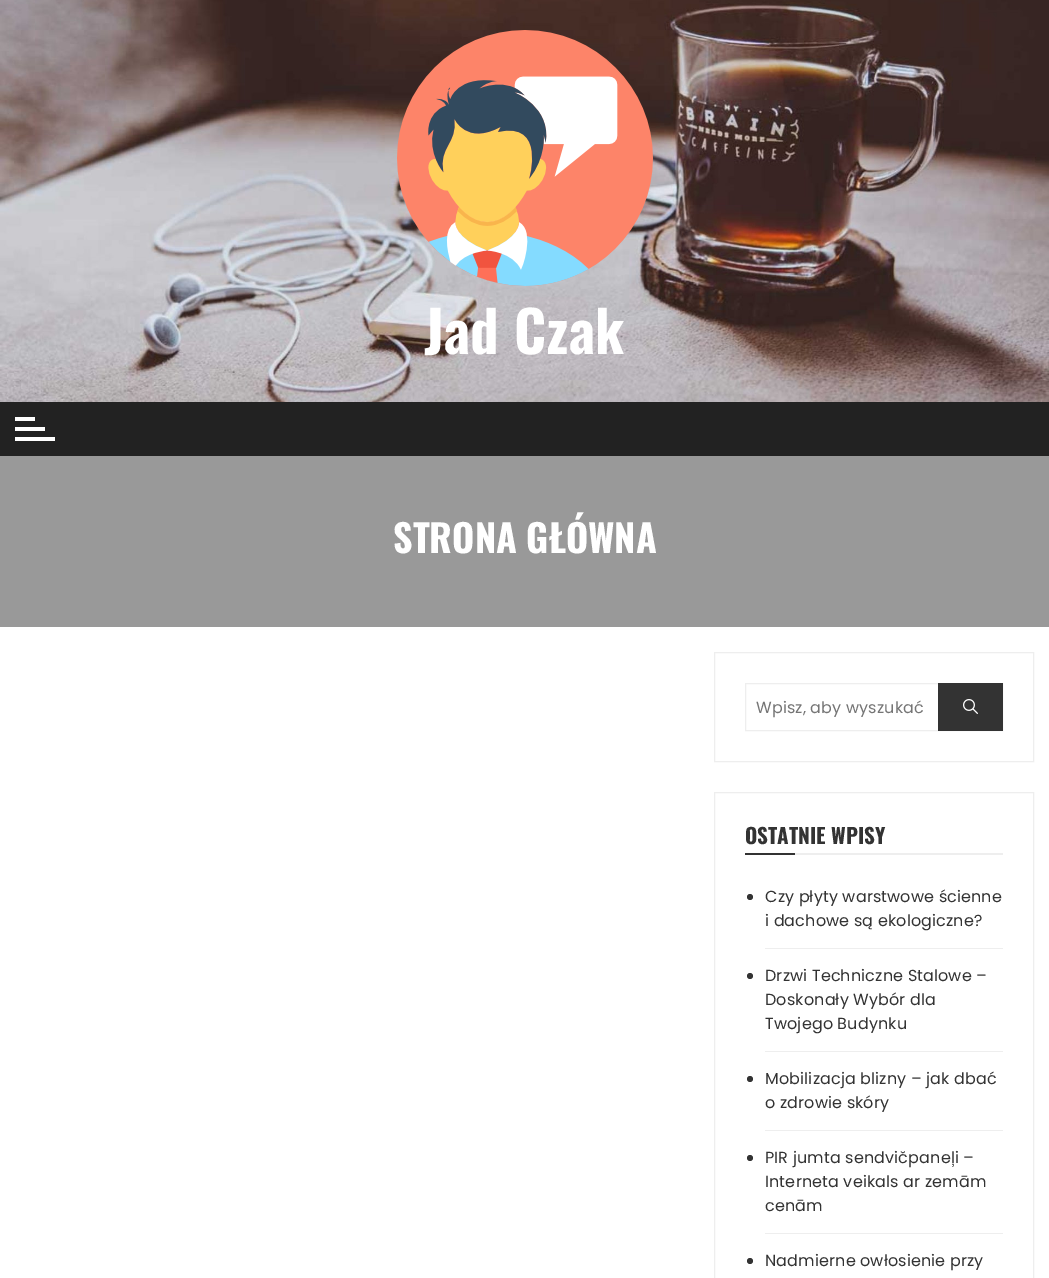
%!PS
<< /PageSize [1049 1278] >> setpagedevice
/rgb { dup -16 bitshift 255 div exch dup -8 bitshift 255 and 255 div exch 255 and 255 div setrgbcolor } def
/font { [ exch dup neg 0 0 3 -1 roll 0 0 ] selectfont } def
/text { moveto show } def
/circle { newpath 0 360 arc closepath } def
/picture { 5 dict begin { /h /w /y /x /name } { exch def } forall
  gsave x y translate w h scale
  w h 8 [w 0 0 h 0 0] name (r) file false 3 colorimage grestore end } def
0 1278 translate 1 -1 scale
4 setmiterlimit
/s1 { /Oswald-Bold 38 font 16#FFFFFF rgb } def
/s2 { /Oswald-Bold 21 font 16#333333 rgb } def
16#FFFFFF rgb
0 0 1049 1278 rectfill
(pic1.raw) 0 0 1049 402 picture
(pic2.raw) 397 30 256 256 picture
/Oswald-Bold 57 font
424 354 moveto 0.15 0 (Jad Czak) ashow
16#222222 rgb
0 402 1049 54 rectfill
16#FFFFFF rgb
15 417 20 4 rectfill
15 427 30 4 rectfill
15 437 40 4 rectfill
16#999999 rgb
0 456 1049 171 rectfill
s1
(STRONA GŁÓWNA) 393 553 text
16#EEEEEE rgb
714.5 652.5 319 109 rectstroke
745.5 683.5 257 47 rectstroke
/Poppins-Regular 16 font
16#757575 rgb
756 713 moveto 0.15 0 (Wpisz, aby wyszukać) ashow
16#333333 rgb
938 683 65 48 rectfill
(pic3.raw) 963 699 15 15 picture
16#EEEEEE rgb
714.5 792.5 319 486 rectstroke
795 853 208 2 rectfill
s2
(OSTATNIE WPISY) 745 844 text
745 853 50 2 rectfill
16#EEEEEE rgb
765 948 238 1 rectfill
16#333333 rgb
750 897 3 circle fill
/Poppins-Regular 16 font
765 902 moveto 0.15 0 (Czy płyty warstwowe ścienne) ashow
765 926 moveto 0.15 0 (i dachowe są ekologiczne?) ashow
16#EEEEEE rgb
765 1051 238 1 rectfill
16#333333 rgb
750 976 3 circle fill
765 981 moveto 0.15 0 (Drzwi Techniczne Stalowe –) ashow
765 1005 moveto 0.15 0 (Doskonały Wybór dla) ashow
765 1029 moveto 0.15 0 (Twojego Budynku) ashow
16#EEEEEE rgb
765 1130 238 1 rectfill
16#333333 rgb
750 1079 3 circle fill
765 1084 moveto 0.15 0 (Mobilizacja blizny – jak dbać) ashow
765 1108 moveto 0.15 0 (o zdrowie skóry) ashow
16#EEEEEE rgb
765 1233 238 1 rectfill
16#333333 rgb
750 1158 3 circle fill
765 1163 moveto 0.15 0 (PIR jumta sendvičpaneļi –) ashow
765 1187 moveto 0.15 0 (Interneta veikals ar zemām) ashow
765 1211 moveto 0.15 0 (cenām) ashow
750 1261 3 circle fill
765 1266 moveto 0.15 0 (Nadmierne owłosienie przy) ashow
showpage
